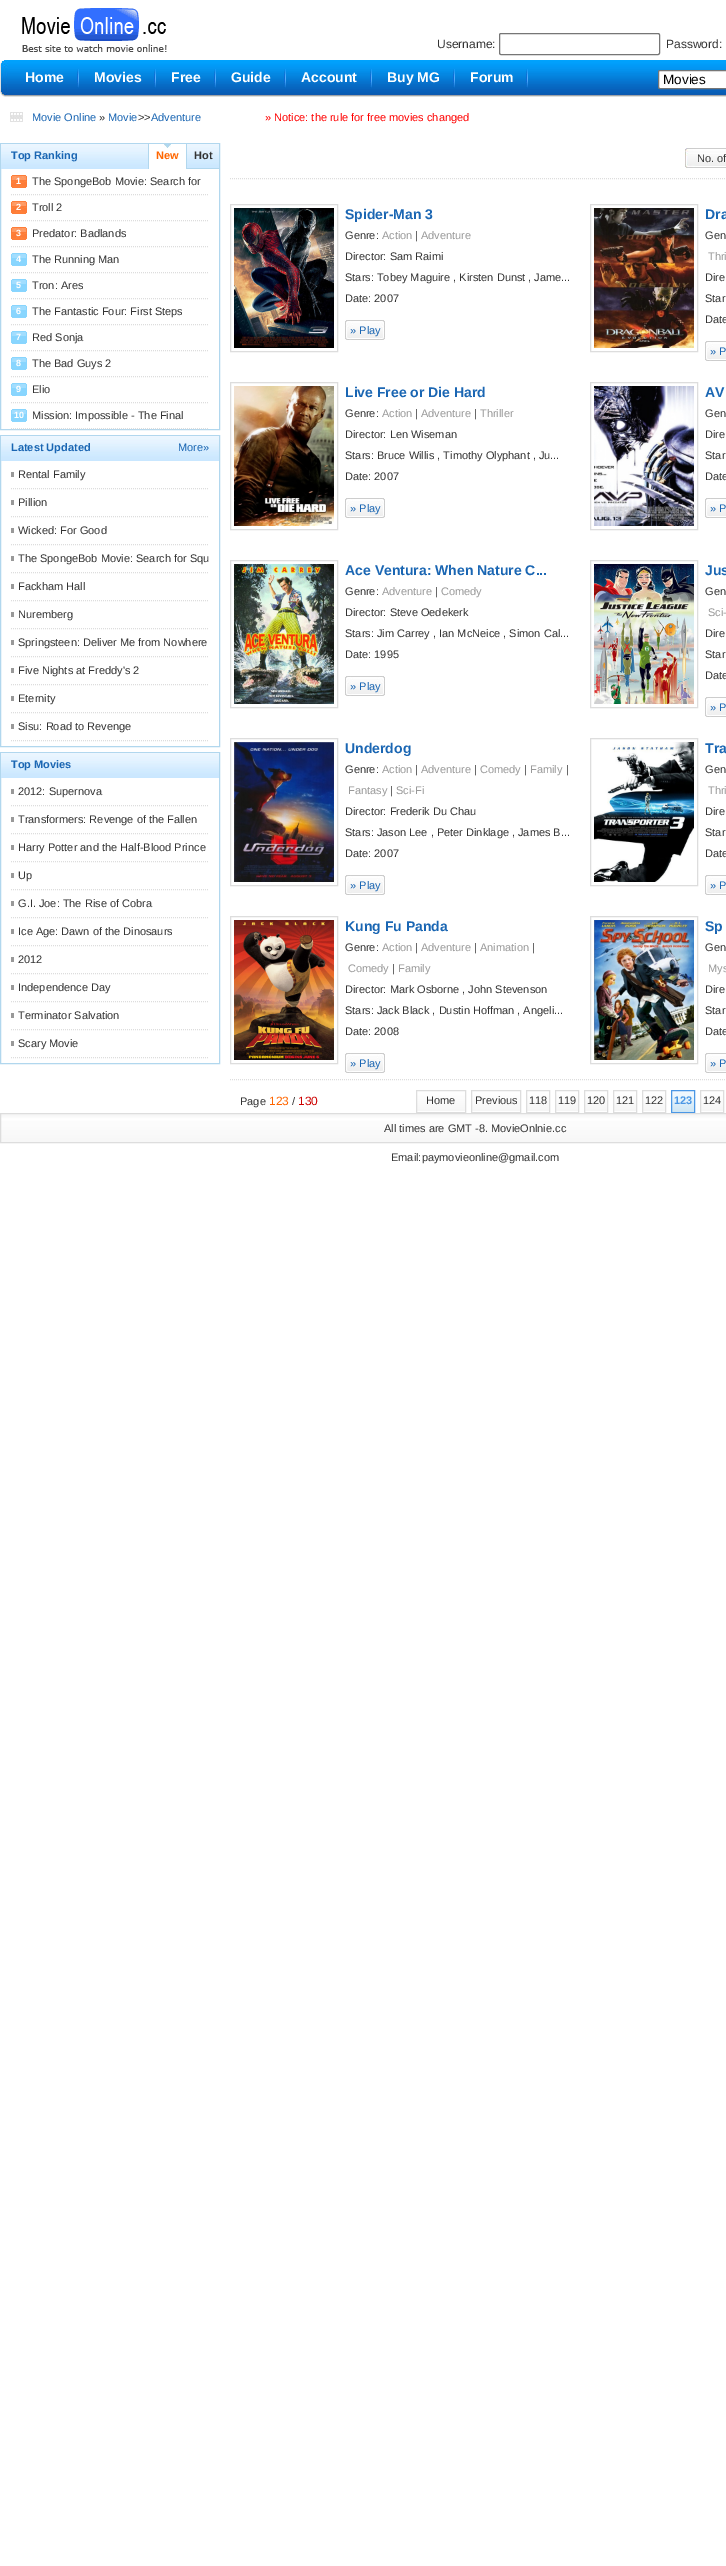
%!PS
<< /PageSize [726 2566] >> setpagedevice
/rgb { dup -16 bitshift 255 div exch dup -8 bitshift 255 and 255 div exch 255 and 255 div setrgbcolor } def
/font { [ exch dup neg 0 0 3 -1 roll 0 0 ] selectfont } def
/text { moveto show } def
/roundrect { 5 dict begin { /r /h /w /y /x } { exch def } forall
  x r add y moveto x w add y 2 copy h add r arct x w add y h add x 1 index r arct
  x y h add x y r arct x y 2 copy exch w add exch r arct closepath end } def
/picture { 5 dict begin { /h /w /y /x /name } { exch def } forall
  gsave x y translate w h scale
  w h 8 [w 0 0 h 0 0] name (r) file false 3 colorimage grestore end } def
0 2566 translate 1 -1 scale
4 setmiterlimit
/s1 { /LiberationSans-Regular 12 font 16#333333 rgb } def
/s2 { /LiberationSans-Bold 14 font 16#FFFFFF rgb } def
/s3 { /LiberationSans-Regular 13.5 font 16#000000 rgb } def
/s4 { /LiberationSans-Regular 11 font 16#1A66B3 rgb } def
/s5 { /LiberationSans-Regular 11 font 16#333333 rgb } def
/s6 { /LiberationSans-Regular 11 font 16#FF0000 rgb } def
/s7 { /LiberationSans-Bold 11 font 16#1A66B3 rgb } def
/s8 { /LiberationSans-Bold 11 font 16#FF6600 rgb } def
/s9 { /LiberationSans-Bold 11 font 16#333333 rgb } def
/s10 { /LiberationSans-Bold 9 font 16#FFFFFF rgb } def
/s11 { /LiberationSans-Bold 14 font 16#1A66B3 rgb } def
/s12 { /LiberationSans-Regular 11 font 16#999999 rgb } def
/s13 { /LiberationSans-Regular 12 font 16#FF6600 rgb } def
/s14 { /LiberationSans-Regular 12 font 16#CD0100 rgb } def
/s15 { /LiberationSans-Bold 11 font 16#4B97E5 rgb } def
16#FFFFFF rgb
0 0 726 2566 rectfill
(pic1.raw) 22 8 145 44 picture
s1
(Username:) 437 48 text
16#767676 rgb
499.5 33.5 160 21 1.5 roundrect stroke
s1
(Password:) 666 48 text
(pic2.raw) 8 60 718 37 picture
(pic3.raw) 0 60 8 37 picture
(pic4.raw) 77 69 2 19 picture
s2
(Home) 25 82 text
(pic4.raw) 154 69 2 19 picture
(Movies) 94 82 text
(pic4.raw) 214 69 2 19 picture
(Free) 171 82 text
(pic4.raw) 284 69 2 19 picture
(Guide) 231 82 text
(pic4.raw) 370 69 2 19 picture
(Account) 301 82 text
(pic4.raw) 453 69 2 19 picture
(Buy MG) 387 82 text
(pic4.raw) 526 69 2 19 picture
(Forum) 470 82 text
658.5 70.5 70 18 1.5 roundrect gsave fill grestore
16#767676 rgb
stroke
s3
(Movies) 663 84 text
(pic5.raw) 10 112 13 10 picture
s4
(Movie Online) 32 121 text
s5
(») 99 121 text
s4
(Movie) 108 121 text
s5
(>>) 138 121 text
s4
(Adventure) 151 121 text
s6
(» Notice: the rule for free movies changed) 265 121 text
16#B1D7EE rgb
0.5 143.5 219 286 rectstroke
(pic6.raw) 1 144 218 25 picture
s7
(Top Ranking) 11 159 text
16#FFFFFF rgb
149 144 37 25 rectfill
(pic7.raw) 164 144 7 4 picture
16#B1D7EE rgb
148 144 1 25 rectfill
s8
(New) 156 159 text
16#B1D7EE rgb
186 168 33 1 rectfill
186 144 1 25 rectfill
s9
(Hot) 194 159 text
16#DDDDDD rgb
[1 1] 0 setdash
11 194.5 moveto 209 194.5 lineto stroke
(pic8.raw) 11 175 16 13 picture
s10
(1) 16 184 text
s5
(The SpongeBob Movie: Search for) 32 185 text
16#DDDDDD rgb
11 220.5 moveto 209 220.5 lineto stroke
(pic8.raw) 11 201 16 13 picture
s10
(2) 16 210 text
s5
(Troll 2) 32 211 text
16#DDDDDD rgb
11 246.5 moveto 209 246.5 lineto stroke
(pic8.raw) 11 227 16 13 picture
s10
(3) 16 236 text
s5
(Predator: Badlands) 32 237 text
16#DDDDDD rgb
11 272.5 moveto 209 272.5 lineto stroke
(pic9.raw) 11 253 16 13 picture
s10
(4) 16 262 text
s5
(The Running Man) 32 263 text
16#DDDDDD rgb
11 298.5 moveto 209 298.5 lineto stroke
(pic9.raw) 11 279 16 13 picture
s10
(5) 16 288 text
s5
(Tron: Ares) 32 289 text
16#DDDDDD rgb
11 324.5 moveto 209 324.5 lineto stroke
(pic9.raw) 11 305 16 13 picture
s10
(6) 16 314 text
s5
(The Fantastic Four: First Steps) 32 315 text
16#DDDDDD rgb
11 350.5 moveto 209 350.5 lineto stroke
(pic9.raw) 11 331 16 13 picture
s10
(7) 16 340 text
s5
(Red Sonja) 32 341 text
16#DDDDDD rgb
11 376.5 moveto 209 376.5 lineto stroke
(pic9.raw) 11 357 16 13 picture
s10
(8) 16 366 text
s5
(The Bad Guys 2) 32 367 text
16#DDDDDD rgb
11 402.5 moveto 209 402.5 lineto stroke
(pic9.raw) 11 383 16 13 picture
s10
(9) 16 392 text
s5
(Elio) 32 393 text
16#DDDDDD rgb
11 428.5 moveto 209 428.5 lineto stroke
(pic9.raw) 11 409 16 13 picture
s10
(10) 14 418 text
s5
(Mission: Impossible - The Final) 32 419 text
16#B1D7EE rgb
[] 0 setdash
0.5 435.5 219 311 rectstroke
(pic6.raw) 1 436 218 25 picture
s7
(Latest Updated) 11 451 text
s4
(More») 178 451 text
16#999999 rgb
11 472 3 5 rectfill
16#DDDDDD rgb
[1 1] 0 setdash
11 488.5 moveto 209 488.5 lineto stroke
s5
(Rental Family) 18 478 text
16#999999 rgb
11 500 3 5 rectfill
16#DDDDDD rgb
11 516.5 moveto 209 516.5 lineto stroke
s5
(Pillion) 18 506 text
16#999999 rgb
11 528 3 5 rectfill
16#DDDDDD rgb
11 544.5 moveto 209 544.5 lineto stroke
s5
(Wicked: For Good) 18 534 text
16#999999 rgb
11 556 3 5 rectfill
16#DDDDDD rgb
11 572.5 moveto 209 572.5 lineto stroke
s5
(The SpongeBob Movie: Search for Squ) 18 562 text
16#999999 rgb
11 584 3 5 rectfill
16#DDDDDD rgb
11 600.5 moveto 209 600.5 lineto stroke
s5
(Fackham Hall) 18 590 text
16#999999 rgb
11 612 3 5 rectfill
16#DDDDDD rgb
11 628.5 moveto 209 628.5 lineto stroke
s5
(Nuremberg) 18 618 text
16#999999 rgb
11 640 3 5 rectfill
16#DDDDDD rgb
11 656.5 moveto 209 656.5 lineto stroke
s5
(Springsteen: Deliver Me from Nowhere) 18 646 text
16#999999 rgb
11 668 3 5 rectfill
16#DDDDDD rgb
11 684.5 moveto 209 684.5 lineto stroke
s5
(Five Nights at Freddy's 2) 18 674 text
16#999999 rgb
11 696 3 5 rectfill
16#DDDDDD rgb
11 712.5 moveto 209 712.5 lineto stroke
s5
(Eternity) 18 702 text
16#999999 rgb
11 724 3 5 rectfill
16#DDDDDD rgb
11 740.5 moveto 209 740.5 lineto stroke
s5
(Sisu: Road to Revenge) 18 730 text
16#B1D7EE rgb
[] 0 setdash
0.5 752.5 219 311 rectstroke
(pic6.raw) 1 753 218 25 picture
s7
(Top Movies) 11 768 text
16#999999 rgb
11 789 3 5 rectfill
16#DDDDDD rgb
[1 1] 0 setdash
11 805.5 moveto 209 805.5 lineto stroke
s5
(2012: Supernova) 18 795 text
16#999999 rgb
11 817 3 5 rectfill
16#DDDDDD rgb
11 833.5 moveto 209 833.5 lineto stroke
s5
(Transformers: Revenge of the Fallen) 18 823 text
16#999999 rgb
11 845 3 5 rectfill
16#DDDDDD rgb
11 861.5 moveto 209 861.5 lineto stroke
s5
(Harry Potter and the Half-Blood Prince) 18 851 text
16#999999 rgb
11 873 3 5 rectfill
16#DDDDDD rgb
11 889.5 moveto 209 889.5 lineto stroke
s5
(Up) 18 879 text
16#999999 rgb
11 901 3 5 rectfill
16#DDDDDD rgb
11 917.5 moveto 209 917.5 lineto stroke
s5
(G.I. Joe: The Rise of Cobra) 18 907 text
16#999999 rgb
11 929 3 5 rectfill
16#DDDDDD rgb
11 945.5 moveto 209 945.5 lineto stroke
s5
(Ice Age: Dawn of the Dinosaurs) 18 935 text
16#999999 rgb
11 957 3 5 rectfill
16#DDDDDD rgb
11 973.5 moveto 209 973.5 lineto stroke
s5
(2012) 18 963 text
16#999999 rgb
11 985 3 5 rectfill
16#DDDDDD rgb
11 1001.5 moveto 209 1001.5 lineto stroke
s5
(Independence Day) 18 991 text
16#999999 rgb
11 1013 3 5 rectfill
16#DDDDDD rgb
11 1029.5 moveto 209 1029.5 lineto stroke
s5
(Terminator Salvation) 18 1019 text
16#999999 rgb
11 1041 3 5 rectfill
16#DDDDDD rgb
11 1057.5 moveto 209 1057.5 lineto stroke
s5
(Scary Movie) 18 1047 text
16#DDDDDD rgb
230 178.5 moveto 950 178.5 lineto stroke
(pic10.raw) 685 148 41 20 picture
s5
(No. of) 697 162 text
16#DDDDDD rgb
230 1079.5 moveto 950 1079.5 lineto stroke
[] 0 setdash
230.5 204.5 107 147 rectstroke
(pic11.raw) 234 208 100 140 picture
s11
(Spider-Man 3) 345 219 text
s5
(Genre:) 345 239 text
s12
(Action) 382 239 text
s5
(|) 415 239 text
s12
(Adventure) 421 239 text
s5
(Director: Sam Raimi) 345 260 text
(Stars: Tobey Maguire , Kirsten Dunst , Jame...) 345 281 text
(Date: 2007) 345 302 text
(pic12.raw) 345 320 40 20 picture
s4
(» Play) 350 334 text
16#DDDDDD rgb
590.5 204.5 107 147 rectstroke
(pic13.raw) 594 208 100 140 picture
s11
(Dra) 705 219 text
s5
(Gen) 705 239 text
s12
(Thri) 708 260 text
s5
(Dire) 705 281 text
(Star) 705 302 text
(Date) 705 323 text
(pic14.raw) 705 341 21 20 picture
s4
(» P) 710 355 text
16#DDDDDD rgb
230.5 382.5 107 147 rectstroke
(pic15.raw) 234 386 100 140 picture
s11
(Live Free or Die Hard) 345 397 text
s5
(Genre:) 345 417 text
s12
(Action) 382 417 text
s5
(|) 415 417 text
s12
(Adventure) 421 417 text
s5
(|) 474 417 text
s12
(Thriller) 480 417 text
s5
(Director: Len Wiseman) 345 438 text
(Stars: Bruce Willis , Timothy Olyphant , Ju...) 345 459 text
(Date: 2007) 345 480 text
(pic12.raw) 345 498 40 20 picture
s4
(» Play) 350 512 text
16#DDDDDD rgb
590.5 382.5 107 147 rectstroke
(pic16.raw) 594 386 100 140 picture
s11
(AV) 705 397 text
s5
(Gen) 705 417 text
(Dire) 705 438 text
(Star) 705 459 text
(Date) 705 480 text
(pic14.raw) 705 498 21 20 picture
s4
(» P) 710 512 text
16#DDDDDD rgb
230.5 560.5 107 147 rectstroke
(pic17.raw) 234 564 100 140 picture
s11
(Ace Ventura: When Nature C...) 345 575 text
s5
(Genre:) 345 595 text
s12
(Adventure) 382 595 text
s5
(|) 435 595 text
s12
(Comedy) 441 595 text
s5
(Director: Steve Oedekerk) 345 616 text
(Stars: Jim Carrey , Ian McNeice , Simon Cal...) 345 637 text
(Date: 1995) 345 658 text
(pic12.raw) 345 676 40 20 picture
s4
(» Play) 350 690 text
16#DDDDDD rgb
590.5 560.5 107 147 rectstroke
(pic18.raw) 594 564 100 140 picture
s11
(Jus) 705 575 text
s5
(Gen) 705 595 text
s12
(Sci-) 708 616 text
s5
(Dire) 705 637 text
(Star) 705 658 text
(Date) 705 679 text
(pic14.raw) 705 697 21 20 picture
s4
(» P) 710 711 text
16#DDDDDD rgb
230.5 738.5 107 147 rectstroke
(pic19.raw) 234 742 100 140 picture
s11
(Underdog) 345 753 text
s5
(Genre:) 345 773 text
s12
(Action) 382 773 text
s5
(|) 415 773 text
s12
(Adventure) 421 773 text
s5
(|) 474 773 text
s12
(Comedy) 480 773 text
s5
(|) 524 773 text
s12
(Family) 530 773 text
s5
(|) 566 773 text
s12
(Fantasy) 348 794 text
s5
(|) 390 794 text
s12
(Sci-Fi) 396 794 text
s5
(Director: Frederik Du Chau) 345 815 text
(Stars: Jason Lee , Peter Dinklage , James B...) 345 836 text
(Date: 2007) 345 857 text
(pic12.raw) 345 875 40 20 picture
s4
(» Play) 350 889 text
16#DDDDDD rgb
590.5 738.5 107 147 rectstroke
(pic20.raw) 594 742 100 140 picture
s11
(Tra) 705 753 text
s5
(Gen) 705 773 text
s12
(Thri) 708 794 text
s5
(Dire) 705 815 text
(Star) 705 836 text
(Date) 705 857 text
(pic14.raw) 705 875 21 20 picture
s4
(» P) 710 889 text
16#DDDDDD rgb
230.5 916.5 107 147 rectstroke
(pic21.raw) 234 920 100 140 picture
s11
(Kung Fu Panda) 345 931 text
s5
(Genre:) 345 951 text
s12
(Action) 382 951 text
s5
(|) 415 951 text
s12
(Adventure) 421 951 text
s5
(|) 474 951 text
s12
(Animation) 480 951 text
s5
(|) 532 951 text
s12
(Comedy) 348 972 text
s5
(|) 392 972 text
s12
(Family) 398 972 text
s5
(Director: Mark Osborne , John Stevenson) 345 993 text
(Stars: Jack Black , Dustin Hoffman , Angeli...) 345 1014 text
(Date: 2008) 345 1035 text
(pic12.raw) 345 1053 40 20 picture
s4
(» Play) 350 1067 text
16#DDDDDD rgb
590.5 916.5 107 147 rectstroke
(pic22.raw) 594 920 100 140 picture
s11
(Sp) 705 931 text
s5
(Gen) 705 951 text
s12
(Mys) 708 972 text
s5
(Dire) 705 993 text
(Star) 705 1014 text
(Date) 705 1035 text
(pic14.raw) 705 1053 21 20 picture
s4
(» P) 710 1067 text
s5
(Page) 240 1105 text
s13
(123) 269 1105 text
s5
(/) 292 1105 text
s14
(130) 298 1105 text
(pic23.raw) 417 1091 48 20 picture
16#DDDDDD rgb
416.5 1090.5 49 22 rectstroke
s5
(Home) 426 1104 text
(pic23.raw) 472 1091 48 20 picture
16#DDDDDD rgb
471.5 1090.5 49 22 rectstroke
s5
(Previous) 475 1104 text
(pic24.raw) 527 1091 22 20 picture
16#DDDDDD rgb
526.5 1090.5 23 22 rectstroke
s5
(118) 529 1104 text
(pic24.raw) 556 1091 22 20 picture
16#DDDDDD rgb
555.5 1090.5 23 22 rectstroke
s5
(119) 558 1104 text
(pic24.raw) 585 1091 22 20 picture
16#DDDDDD rgb
584.5 1090.5 23 22 rectstroke
s5
(120) 587 1104 text
(pic24.raw) 614 1091 22 20 picture
16#DDDDDD rgb
613.5 1090.5 23 22 rectstroke
s5
(121) 616 1104 text
(pic24.raw) 643 1091 22 20 picture
16#DDDDDD rgb
642.5 1090.5 23 22 rectstroke
s5
(122) 645 1104 text
(pic25.raw) 672 1091 22 21 picture
16#4B97E5 rgb
671.5 1090.5 23 22 rectstroke
s15
(123) 674 1104 text
(pic24.raw) 701 1091 22 20 picture
16#DDDDDD rgb
700.5 1090.5 23 22 rectstroke
s5
(124) 703 1104 text
(pic26.raw) 1 1114 725 28 picture
16#DDDDDD rgb
0.5 1113.5 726 29 rectstroke
s5
(All times are GMT -8. MovieOnlnie.cc) 384 1132 text
(Email:paymovieonline@gmail.com) 391 1161 text
showpage
